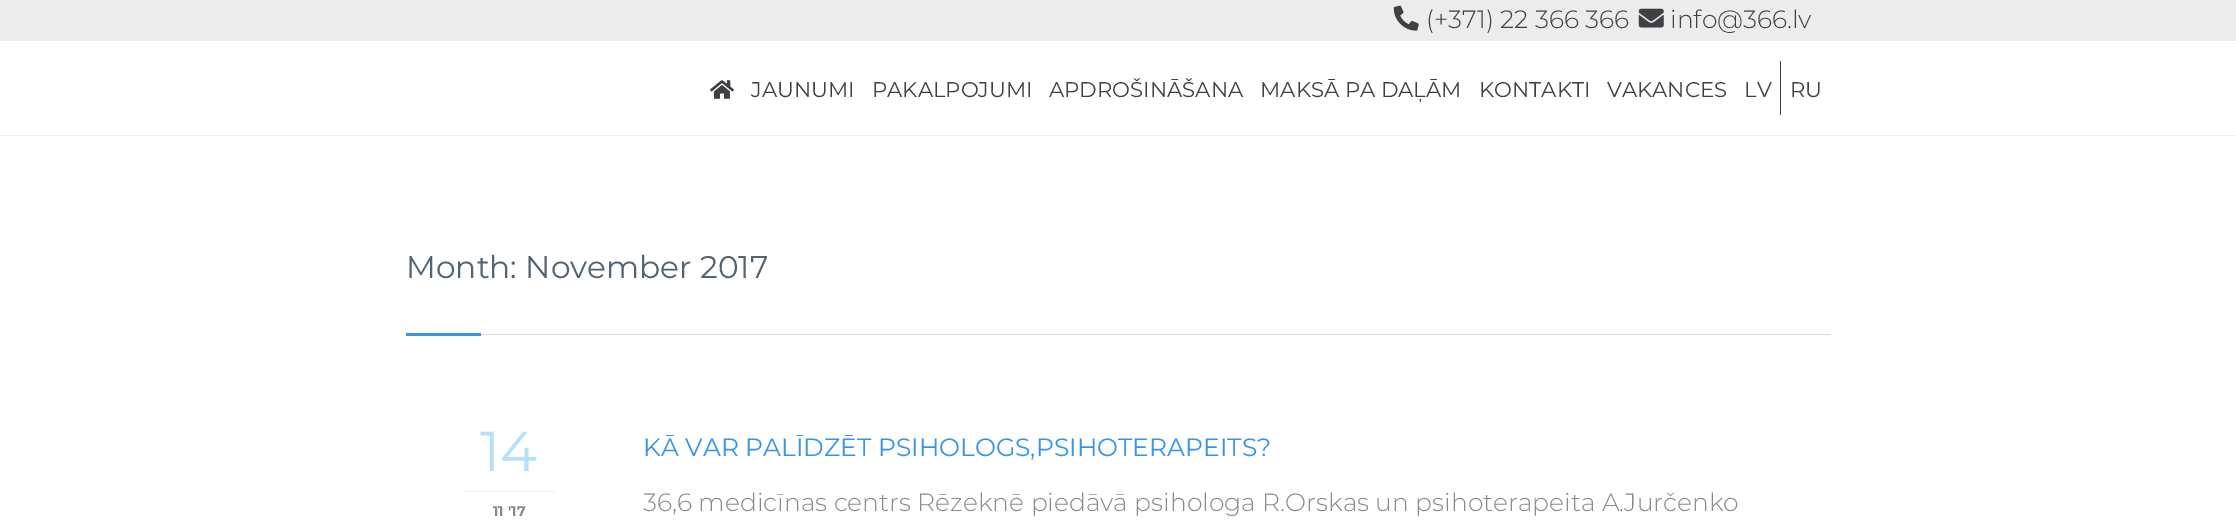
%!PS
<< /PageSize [2236 520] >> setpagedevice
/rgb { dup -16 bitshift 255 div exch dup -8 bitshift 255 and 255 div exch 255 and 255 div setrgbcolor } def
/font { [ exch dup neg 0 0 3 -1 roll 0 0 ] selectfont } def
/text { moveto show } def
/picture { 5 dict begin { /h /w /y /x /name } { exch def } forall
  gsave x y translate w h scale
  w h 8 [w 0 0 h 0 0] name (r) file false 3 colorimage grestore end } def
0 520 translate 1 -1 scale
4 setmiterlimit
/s1 { /Montserrat-Light 25 font 16#3E4043 rgb } def
/s2 { /Montserrat-Regular 21.25 font 16#3E4043 rgb } def
/s3 { /Montserrat-Regular 31.25 font 16#526371 rgb } def
/s4 { /Montserrat-Regular 56 font 16#B5E0FC rgb } def
/s5 { /Montserrat-Bold 14 font 16#898989 rgb } def
/s6 { /Montserrat-Regular 25 font 16#3695EB rgb } def
/s7 { /Montserrat-Light 25 font 16#898989 rgb } def
16#FFFFFF rgb
0 0 2236 520 rectfill
16#F0F0F1 rgb
0 135 2236 1 rectfill
16#ECECEC rgb
0 0 2236 41 rectfill
(pic1.raw) 1393 5 26 26 picture
s1
(\(+371\) 22 366 366) 1426 28 text
(pic2.raw) 1638 8 26 20 picture
(info@366.lv) 1670 28 text
(pic3.raw) 710 80 24 19 picture
s2
(JAUNUMI) 751 97 text
(PAKALPOJUMI) 872 97 text
(APDROŠINĀŠANA) 1049 97 text
(MAKSĀ PA DAĻĀM) 1260 97 text
(KONTAKTI) 1479 97 text
(VAKANCES) 1607 97 text
(LV) 1744 97 text
1780 61 1 54 rectfill
(RU) 1790 97 text
16#DADADE rgb
481 334 1350 1 rectfill
s3
(Month: November 2017) 406 278 text
16#3695EB rgb
406 333 75 3 rectfill
16#E7F6FF rgb
463 491 93 1 rectfill
s4
(14) 480 471 text
s5
(11 '17) 493 516 text
s6
(KĀ VAR PALĪDZĒT PSIHOLOGS,PSIHOTERAPEITS?) 643 456 text
s7
(36,6 medicīnas centrs Rēzeknē piedāvā psihologa R.Orskas un psihoterapeita A.Jurčenko) 643 511 text
showpage
